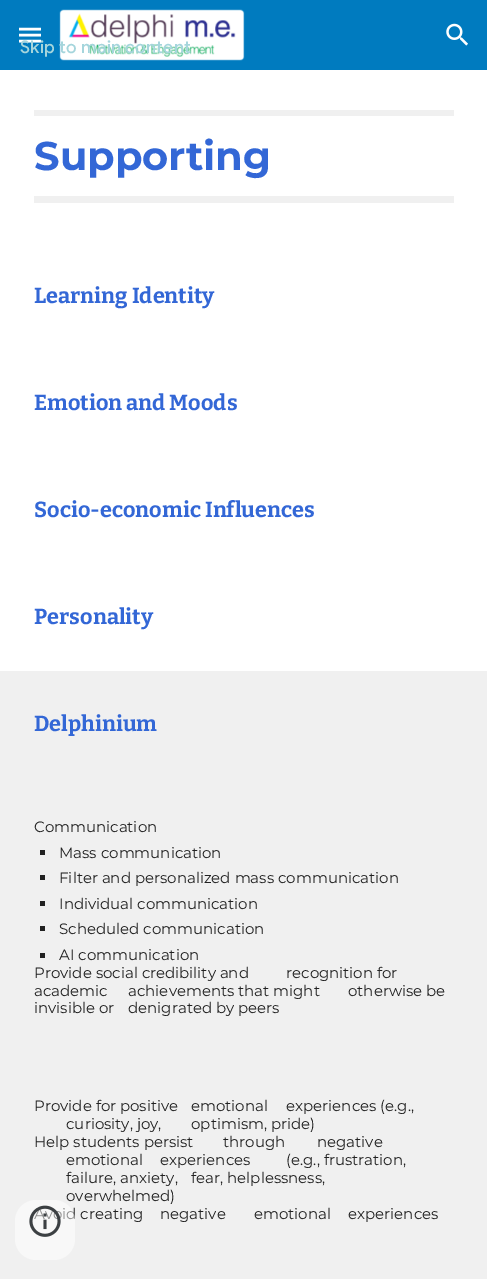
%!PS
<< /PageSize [487 1279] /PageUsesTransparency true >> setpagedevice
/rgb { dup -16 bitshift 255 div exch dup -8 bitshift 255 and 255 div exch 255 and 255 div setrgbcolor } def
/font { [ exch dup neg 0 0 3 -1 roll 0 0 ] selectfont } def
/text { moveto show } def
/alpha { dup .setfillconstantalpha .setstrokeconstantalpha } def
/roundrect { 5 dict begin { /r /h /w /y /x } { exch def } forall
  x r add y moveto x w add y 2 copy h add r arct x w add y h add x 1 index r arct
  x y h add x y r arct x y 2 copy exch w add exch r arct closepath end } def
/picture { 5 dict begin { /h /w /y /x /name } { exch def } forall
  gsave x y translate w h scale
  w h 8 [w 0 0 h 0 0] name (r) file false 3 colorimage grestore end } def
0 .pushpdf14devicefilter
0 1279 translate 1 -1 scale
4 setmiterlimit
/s1 { /Montserrat-Bold 40 font 16#3367D6 rgb } def
/s2 { /Bitter-Bold 21.7 font 16#3367D6 rgb } def
/s3 { /Montserrat-Regular 15 font 16#212121 rgb } def
16#FFFFFF rgb
0 0 487 1279 rectfill
16#007BBF rgb
0 0 487 70 rectfill
(pic1.raw) 59 9 186 52 picture
16#FFFFFF rgb
2.5 setlinewidth
19 29 moveto 41 29 lineto 19 35 moveto 41 35 lineto 19 41 moveto 41 41 lineto stroke
/GoogleSans-Medium 17.5 font
16#A5D5DC rgb
20 53 moveto 0.2 0 (Skip to main content) ashow
(pic2.raw) 446 23 22 23 picture
16#F0F0F0 rgb
34 110 420 6 rectfill
34 196 420 7 rectfill
s1
(Supporting) 34 170 text
s2
(Learning Identity) 34 303 text
(Emotion and Moods) 34 410 text
(Socio-economic Influences) 34 517 text
(Personality) 34 624 text
16#F0F0F0 rgb
0 671 487 608 rectfill
s2
(Delphinium) 34 731 text
s3
(Communication) 34 832 text
40 850 5 5 rectfill
(Mass communication) 59 858 text
40 875 5 5 rectfill
(Filter and personalized mass communication) 59 883 text
40 901 5 5 rectfill
(Individual communication) 59 909 text
40 926 5 5 rectfill
(Scheduled communication) 59 934 text
40 953 5 5 rectfill
(AI communication) 59 960 text
(Provide social credibility and) 34 978 text
(recognition for) 286 978 text
(academic) 34 996 text
(achievements that might) 128 996 text
(otherwise be) 348 996 text
(invisible or) 34 1013 text
(denigrated by peers) 128 1013 text
(Provide for positive) 34 1111 text
(emotional) 191 1111 text
(experiences \(e.g.,) 286 1111 text
(curiosity, joy,) 66 1129 text
(optimism, pride\)) 191 1129 text
(Help students persist) 34 1147 text
(through) 223 1147 text
(negative) 317 1147 text
(emotional) 66 1165 text
(experiences) 160 1165 text
(\(e.g., frustration,) 286 1165 text
(failure, anxiety,) 66 1183 text
(fear, helplessness,) 191 1183 text
(overwhelmed\)) 66 1201 text
(Avoid creating) 34 1219 text
(negative) 160 1219 text
(emotional) 254 1219 text
(experiences) 348 1219 text
0.5 alpha
16#FFFFFF rgb
15 1200 60 60 21 roundrect fill
1 alpha
(pic3.raw) 29 1205 32 32 picture
.poppdf14devicefilter showpage
